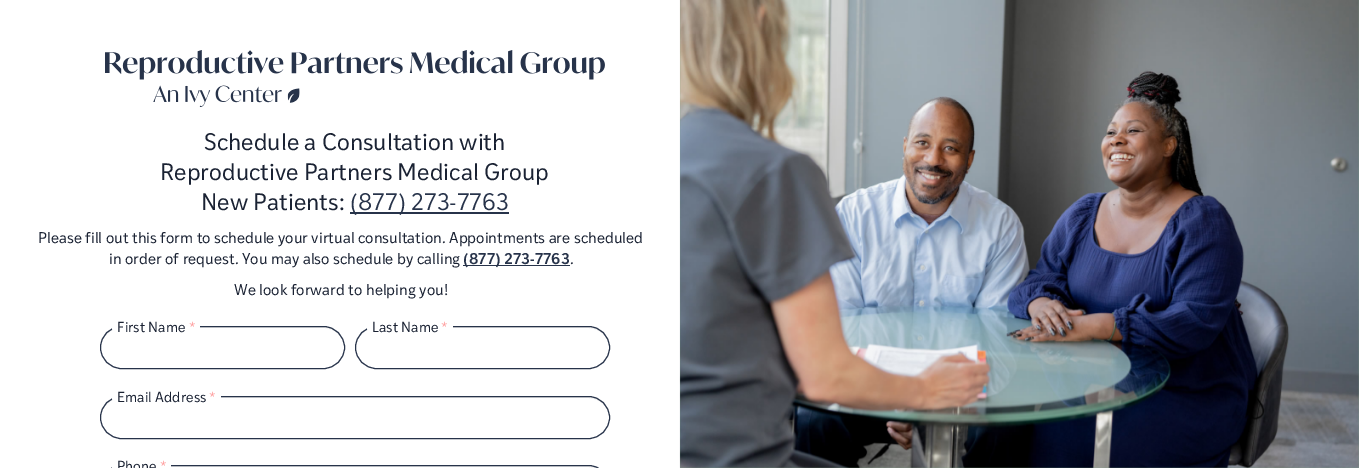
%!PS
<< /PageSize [1359 468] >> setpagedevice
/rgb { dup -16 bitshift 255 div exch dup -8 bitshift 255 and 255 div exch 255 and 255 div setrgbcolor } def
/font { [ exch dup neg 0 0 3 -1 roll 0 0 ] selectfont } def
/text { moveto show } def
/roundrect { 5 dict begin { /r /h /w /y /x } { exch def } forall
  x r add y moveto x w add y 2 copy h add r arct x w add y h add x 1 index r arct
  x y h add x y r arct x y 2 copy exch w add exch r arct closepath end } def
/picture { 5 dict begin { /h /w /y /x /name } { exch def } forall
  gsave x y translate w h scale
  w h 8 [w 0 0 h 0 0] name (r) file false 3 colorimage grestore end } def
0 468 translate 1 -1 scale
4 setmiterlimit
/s1 { /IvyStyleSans-Regular 23 font 16#1A2233 rgb } def
/s2 { /IvyStyleSans-Regular 23 font 16#27334A rgb } def
/s3 { /IvyStyleSans-Regular 15 font 16#1A2233 rgb } def
/s4 { /IvyStyleSans-SemiBold 15 font 16#27334A rgb } def
/s5 { /IvyStyleSans-Regular 14 font 16#1A2233 rgb } def
/s6 { /IvyStyleSans-Regular 14 font 16#FF9999 rgb } def
16#FFFFFF rgb
0 0 1359 468 rectfill
(pic1.raw) 105 50 500 57 picture
s1
(Schedule a Consultation with) 204 150 text
(Reproductive Partners Medical Group) 160 180 text
(New Patients:) 201 210 text
16#27334A rgb
350 212 159 2 rectfill
(\(877\) 273-7763) 350 210 text
s3
(Please fill out this form to schedule your virtual consultation. Appointments are scheduled) 38 243 text
(in order of request. You may also schedule by calling) 109 264 text
16#27334A rgb
463 265 107 1 rectfill
s4
(\(877\) 273-7763) 463 264 text
s3
(.) 570 264 text
(We look forward to helping you!) 234 295 text
16#ECECEC rgb
122 328 moveto 324 328 lineto 335 328 344 337 344 348 curveto 344 336 335 327 324 327 curveto 122 327 lineto 110 327 101 336 101 348 curveto 101 337 110 328 122 328 curveto closepath fill
16#27334A rgb
100.5 326.5 244 42 21 roundrect stroke
16#FFFFFF rgb
112 315 88 24 12 roundrect fill
s5
(First Name) 117 332 text
s6
(*) 189 332 text
16#ECECEC rgb
376 328 moveto 588 328 lineto 600 328 609 337 609 348 curveto 609 319 568 327 553 327 curveto 412 327 lineto 397 327 356 319 356 348 curveto 356 337 365 328 376 328 curveto closepath fill
16#27334A rgb
355.5 326.5 254 42 21 roundrect stroke
16#FFFFFF rgb
367 315 86 24 12 roundrect fill
s5
(Last Name) 372 332 text
s6
(*) 441 332 text
16#ECECEC rgb
122 398 moveto 588 398 lineto 600 398 609 407 609 418 curveto 609 406 600 397 588 397 curveto 122 397 lineto 110 397 101 406 101 418 curveto 101 407 110 398 122 398 curveto closepath fill
16#27334A rgb
100.5 396.5 509 42 21 roundrect stroke
16#FFFFFF rgb
112 385 109 24 12 roundrect fill
s5
(Email Address) 117 402 text
s6
(*) 209 402 text
16#ECECEC rgb
122 467 moveto 588 467 lineto 600 467 609 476 609 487 curveto 609 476 600 466 588 466 curveto 122 466 lineto 110 466 101 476 101 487 curveto 101 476 110 467 122 467 curveto closepath fill
16#27334A rgb
100.5 465.5 509 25 21 roundrect stroke
16#FFFFFF rgb
112 454 59 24 12 roundrect fill
s5
(Phone) 117 471 text
s6
(*) 160 471 text
16#7CA686 rgb
680 0 679 468 rectfill
(pic2.raw) 679 0 680 468 picture
showpage
